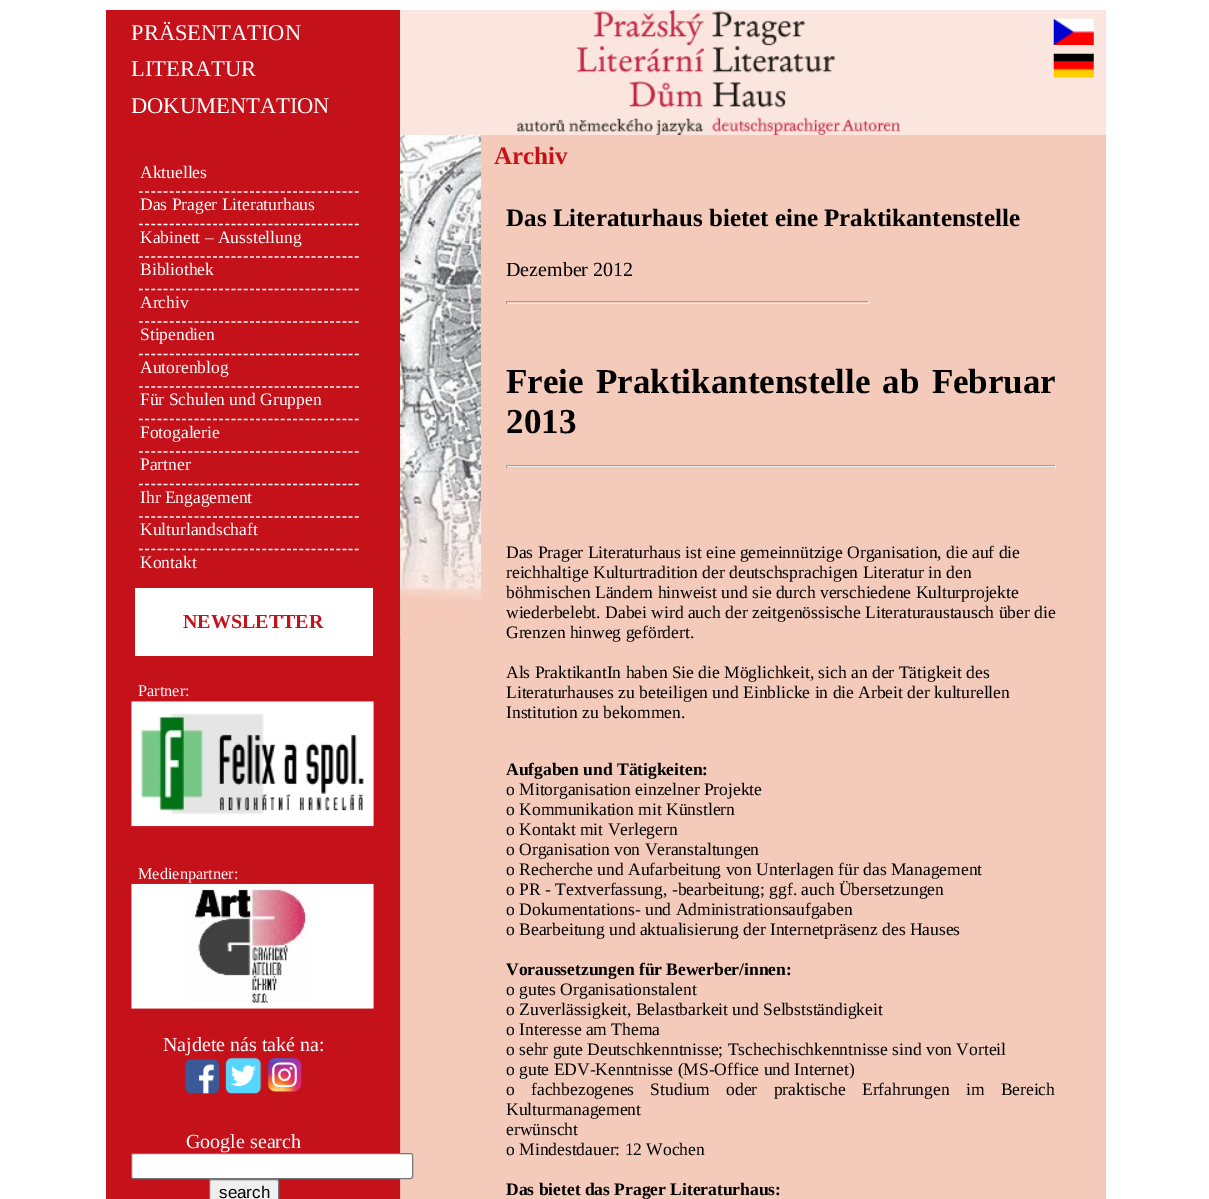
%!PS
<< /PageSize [1209 1199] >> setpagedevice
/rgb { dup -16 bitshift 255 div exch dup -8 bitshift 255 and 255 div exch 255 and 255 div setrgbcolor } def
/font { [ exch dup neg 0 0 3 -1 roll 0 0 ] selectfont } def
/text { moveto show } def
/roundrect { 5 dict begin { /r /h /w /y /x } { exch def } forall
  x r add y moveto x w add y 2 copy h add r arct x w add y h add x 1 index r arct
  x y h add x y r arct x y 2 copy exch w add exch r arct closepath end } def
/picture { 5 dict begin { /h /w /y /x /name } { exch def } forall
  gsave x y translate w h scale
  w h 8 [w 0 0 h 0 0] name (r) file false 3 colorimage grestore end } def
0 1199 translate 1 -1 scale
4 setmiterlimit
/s1 { /LiberationSerif-Regular 22.5 font 16#FFFFFF rgb } def
/s2 { /LiberationSerif-Regular 17.5 font 16#FFFFFF rgb } def
/s3 { /LiberationSerif-Bold 20 font 16#C4111A rgb } def
/s4 { /LiberationSerif-Regular 16.25 font 16#FFFFFF rgb } def
/s5 { /LiberationSerif-Regular 20 font 16#FFFFFF rgb } def
/s6 { /LiberationSans-Regular 17 font 16#000000 rgb } def
/s7 { /LiberationSerif-Bold 25 font 16#C4111A rgb } def
/s8 { /LiberationSerif-Bold 25 font 16#000000 rgb } def
/s9 { /LiberationSerif-Regular 20 font 16#000000 rgb } def
/s10 { /LiberationSerif-Bold 35 font 16#000000 rgb } def
/s11 { /LiberationSerif-Regular 17.5 font 16#000000 rgb } def
/s12 { /LiberationSerif-Bold 17.5 font 16#000000 rgb } def
16#FFFFFF rgb
0 0 1209 1199 rectfill
16#F4CABA rgb
400 135 706 1064 rectfill
(pic1.raw) 400 635 1 564 picture
16#FAE6DE rgb
400 10 706 125 rectfill
(pic2.raw) 517 10 383 125 picture
16#C4111A rgb
106 10 294 1189 rectfill
s1
(PRÄSENTATION) 131 40 text
(LITERATUR) 131 76 text
(DOKUMENTATION) 131 113 text
(pic3.raw) 1053 18 41 27 picture
(pic4.raw) 1053 53 41 25 picture
s2
(Aktuelles) 140 178 text
1.2 setlinewidth
[3.75 2.42] 0 setdash
139 192 moveto 359 192 lineto stroke
(Das Prager Literaturhaus) 140 210 text
139 224.5 moveto 359 224.5 lineto stroke
(Kabinett – Ausstellung) 140 243 text
139 257 moveto 359 257 lineto stroke
(Bibliothek) 140 275 text
139 289.5 moveto 359 289.5 lineto stroke
(Archiv) 140 308 text
139 322 moveto 359 322 lineto stroke
(Stipendien) 140 340 text
139 354.5 moveto 359 354.5 lineto stroke
(Autorenblog) 140 373 text
139 387 moveto 359 387 lineto stroke
(Für Schulen und Gruppen) 140 405 text
139 419.5 moveto 359 419.5 lineto stroke
(Fotogalerie) 140 438 text
139 452 moveto 359 452 lineto stroke
(Partner) 140 470 text
139 484.5 moveto 359 484.5 lineto stroke
(Ihr Engagement) 140 503 text
139 517 moveto 359 517 lineto stroke
(Kulturlandschaft) 140 535 text
139 549.5 moveto 359 549.5 lineto stroke
(Kontakt) 140 568 text
135 588 238 68 rectfill
s3
(NEWSLETTER) 183 628 text
s4
(Partner:) 138 696 text
(pic5.raw) 131 701 243 126 picture
(Medienpartner:) 138 879 text
(pic6.raw) 131 883 243 126 picture
s5
(Najdete nás také na:) 163 1051 text
(pic7.raw) 185 1058 35 36 picture
(pic8.raw) 225 1057 37 37 picture
(pic9.raw) 267 1057 35 35 picture
(Google search) 186 1148 text
131.5 1153.5 281 25 2 roundrect gsave fill grestore
16#767676 rgb
1 setlinewidth
[] 0 setdash
stroke
16#EFEFEF rgb
209.5 1179.5 69 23 2 roundrect gsave fill grestore
16#767676 rgb
stroke
s6
(search) 219 1198 text
(pic10.raw) 400 135 81 500 picture
s7
(Archiv) 494 164 text
s8
(Das Literaturhaus bietet eine Praktikantenstelle) 506 226 text
s9
(Dezember 2012) 506 276 text
16#9F9F9F rgb
506 301 363 1 rectfill
16#EEEEEE rgb
868 301 1 3 rectfill
506 303 363 1 rectfill
16#9F9F9F rgb
506 301 1 3 rectfill
/LiberationSerif-Bold 35 font
16#000000 rgb
506 393 moveto 3.5 0 32 (Freie Praktikantenstelle ab Februar) widthshow
(2013) 506 433 text
16#9F9F9F rgb
506 465 550 1 rectfill
16#EEEEEE rgb
1055 465 1 3 rectfill
506 466 550 1 rectfill
16#9F9F9F rgb
506 465 1 3 rectfill
s11
(Das Prager Literaturhaus ist eine gemeinnützige Organisation, die auf die) 506 558 text
(reichhaltige Kulturtradition der deutschsprachigen Literatur in den) 506 578 text
(böhmischen Ländern hinweist und sie durch verschiedene Kulturprojekte) 506 598 text
(wiederbelebt. Dabei wird auch der zeitgenössische Literaturaustausch über die) 506 618 text
(Grenzen hinweg gefördert.) 506 638 text
(Als PraktikantIn haben Sie die Möglichkeit, sich an der Tätigkeit des) 506 678 text
(Literaturhauses zu beteiligen und Einblicke in die Arbeit der kulturellen) 506 698 text
(Institution zu bekommen.) 506 718 text
s12
(Aufgaben und Tätigkeiten:) 506 775 text
s11
(o Mitorganisation einzelner Projekte) 506 795 text
(o Kommunikation mit Künstlern) 506 815 text
(o Kontakt mit Verlegern) 506 835 text
(o Organisation von Veranstaltungen) 506 855 text
(o Recherche und Aufarbeitung von Unterlagen für das Management) 506 875 text
(o PR - Textverfassung, -bearbeitung; ggf. auch Übersetzungen) 506 895 text
(o Dokumentations- und Administrationsaufgaben) 506 915 text
(o Bearbeitung und aktualisierung der Internetpräsenz des Hauses) 506 935 text
s12
(Voraussetzungen für Bewerber/innen:) 506 975 text
s11
(o gutes Organisationstalent) 506 995 text
(o Zuverlässigkeit, Belastbarkeit und Selbstständigkeit) 506 1015 text
(o Interesse am Thema) 506 1035 text
(o sehr gute Deutschkenntnisse; Tschechischkenntnisse sind von Vorteil) 506 1055 text
(o gute EDV-Kenntnisse \(MS-Office und Internet\)) 506 1075 text
506 1095 moveto 12 0 32 (o fachbezogenes Studium oder praktische Erfahrungen im Bereich) widthshow
(Kulturmanagement) 506 1115 text
(erwünscht) 506 1135 text
(o Mindestdauer: 12 Wochen) 506 1155 text
s12
(Das bietet das Prager Literaturhaus:) 506 1195 text
showpage
